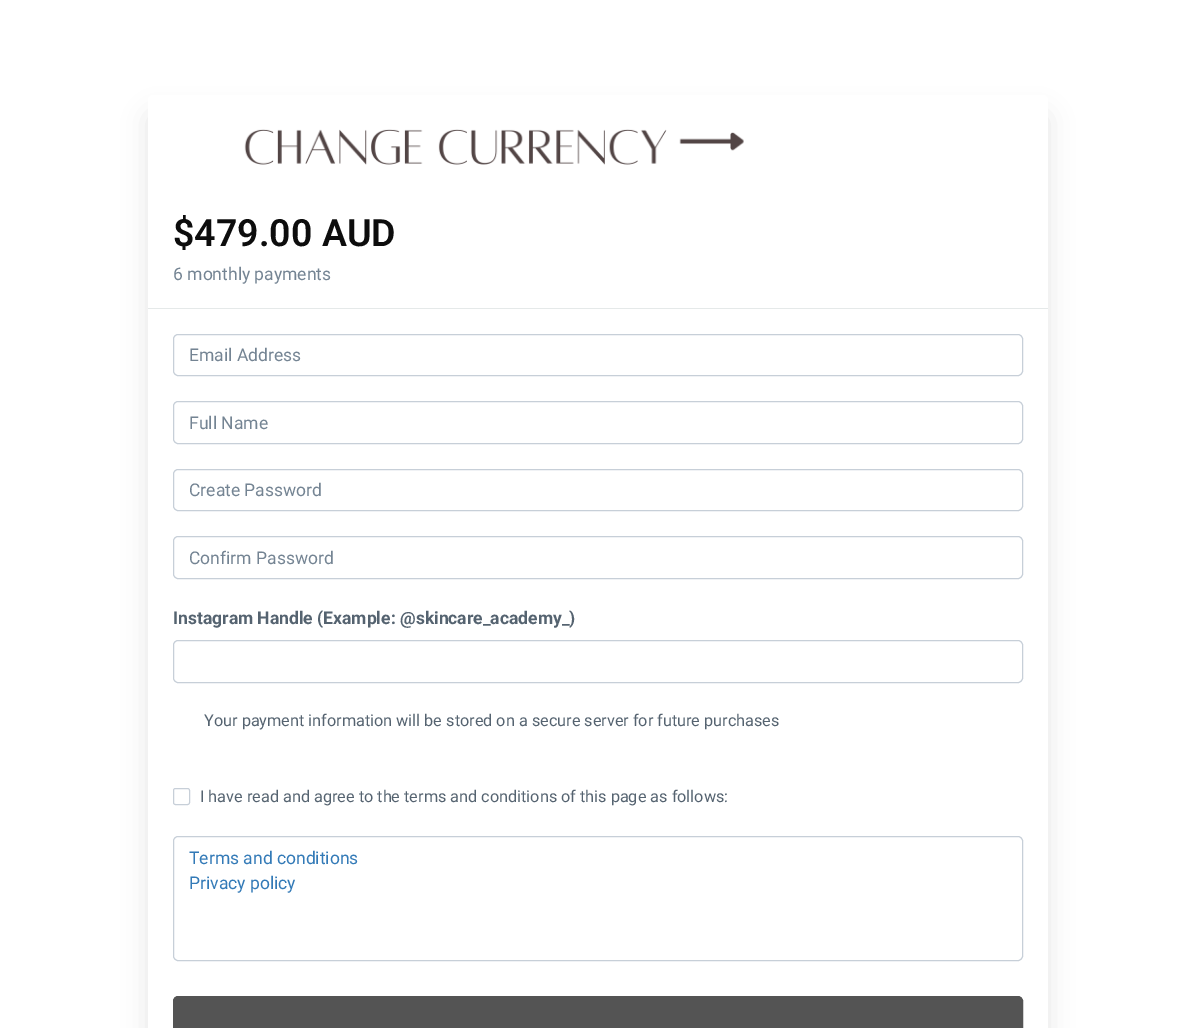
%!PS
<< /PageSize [1194 1028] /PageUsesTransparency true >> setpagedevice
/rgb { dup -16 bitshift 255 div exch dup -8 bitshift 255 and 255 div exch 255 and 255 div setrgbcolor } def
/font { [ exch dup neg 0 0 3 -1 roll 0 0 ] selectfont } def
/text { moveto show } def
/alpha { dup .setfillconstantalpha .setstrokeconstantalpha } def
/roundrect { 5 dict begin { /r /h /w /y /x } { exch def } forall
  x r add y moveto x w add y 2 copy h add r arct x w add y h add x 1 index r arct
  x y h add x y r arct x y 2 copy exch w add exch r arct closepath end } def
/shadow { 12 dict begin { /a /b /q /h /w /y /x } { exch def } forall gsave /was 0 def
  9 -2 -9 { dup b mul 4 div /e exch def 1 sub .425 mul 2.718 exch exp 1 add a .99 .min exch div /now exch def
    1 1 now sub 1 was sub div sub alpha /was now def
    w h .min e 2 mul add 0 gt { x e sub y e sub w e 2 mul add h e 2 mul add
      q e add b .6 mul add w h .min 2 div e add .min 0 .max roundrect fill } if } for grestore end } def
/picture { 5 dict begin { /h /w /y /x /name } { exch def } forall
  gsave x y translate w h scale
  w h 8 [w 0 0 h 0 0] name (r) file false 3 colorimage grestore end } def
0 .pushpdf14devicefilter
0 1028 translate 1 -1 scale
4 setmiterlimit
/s1 { /Roboto-SemiBold 37.5 font 16#0D0D0D rgb } def
/s2 { /Roboto-Regular 17.5 font 16#748493 rgb } def
/s3 { /Roboto-Bold 17.5 font 16#556370 rgb } def
/s4 { /Roboto-Regular 16.25 font 16#556370 rgb } def
/s5 { /Roboto-Regular 17.5 font 16#337AB7 rgb } def
16#FFFFFF rgb
0 0 1194 1028 rectfill
16#000000 rgb
148 114 900 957 5 12.5 0.1 shadow
16#FFFFFF rgb
148 95 900 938 5 roundrect fill
(pic1.raw) 244 129 500 36 picture
16#E5E9E9 rgb
148 308 900 1 rectfill
s1
($479.00 AUD) 173 246 text
s2
(6 monthly payments) 173 280 text
16#C7CFD8 rgb
173.5 334.5 849 41 4.5 roundrect stroke
s2
(Email Address) 189 361 text
16#C7CFD8 rgb
173.5 401.5 849 42 4.5 roundrect stroke
s2
(Full Name) 189 429 text
16#C7CFD8 rgb
173.5 469.5 849 41 4.5 roundrect stroke
s2
(Create Password) 189 496 text
16#C7CFD8 rgb
173.5 536.5 849 42 4.5 roundrect stroke
s2
(Confirm Password) 189 564 text
s3
(Instagram Handle \(Example: @skincare_academy_\)) 173 624 text
16#C7CFD8 rgb
173.5 640.5 849 42 4.5 roundrect stroke
s4
(Your payment information will be stored on a secure server for future purchases) 204 726 text
16#C7CFD8 rgb
173.5 788.5 16 16 2 roundrect stroke
s4
(I have read and agree to the terms and conditions of this page as follows:) 200 802 text
16#C7CFD8 rgb
173.5 836.5 849 124 4.5 roundrect stroke
s5
(Terms and conditions) 189 864 text
(Privacy policy) 189 889 text
16#545454 rgb
173.5 996.5 849 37 4.5 roundrect gsave fill grestore
stroke
.poppdf14devicefilter showpage
